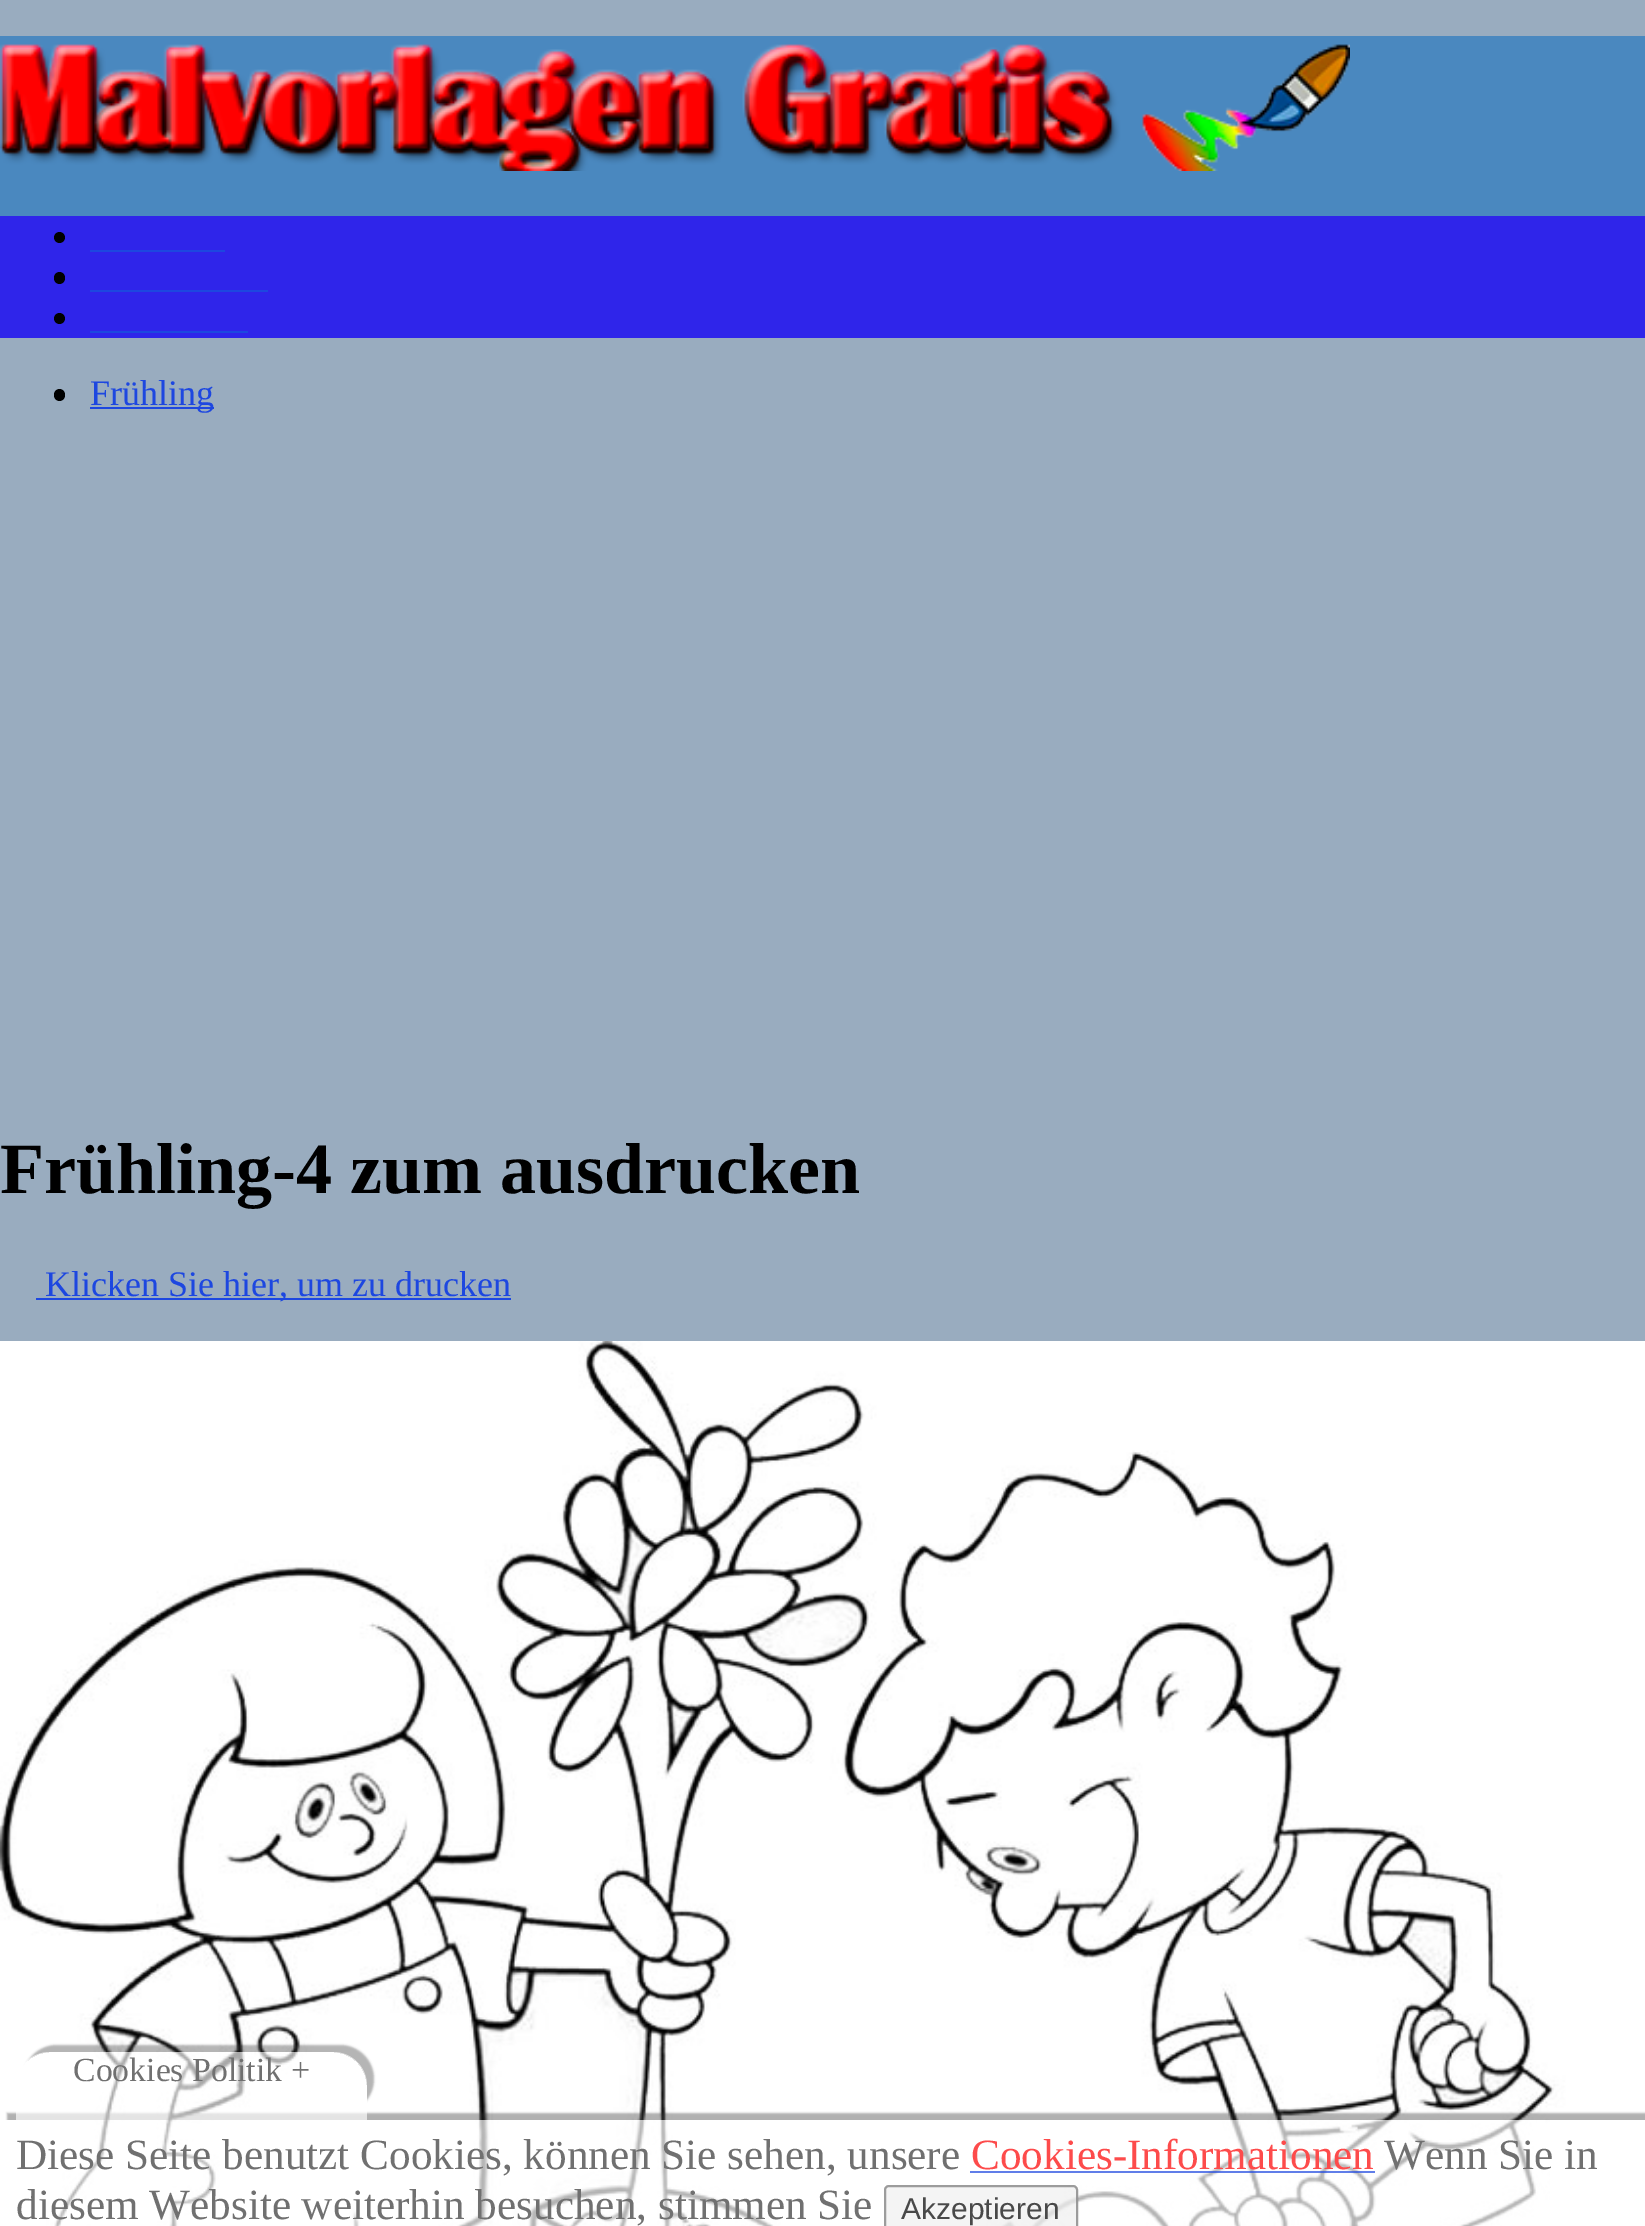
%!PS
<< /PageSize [1645 2226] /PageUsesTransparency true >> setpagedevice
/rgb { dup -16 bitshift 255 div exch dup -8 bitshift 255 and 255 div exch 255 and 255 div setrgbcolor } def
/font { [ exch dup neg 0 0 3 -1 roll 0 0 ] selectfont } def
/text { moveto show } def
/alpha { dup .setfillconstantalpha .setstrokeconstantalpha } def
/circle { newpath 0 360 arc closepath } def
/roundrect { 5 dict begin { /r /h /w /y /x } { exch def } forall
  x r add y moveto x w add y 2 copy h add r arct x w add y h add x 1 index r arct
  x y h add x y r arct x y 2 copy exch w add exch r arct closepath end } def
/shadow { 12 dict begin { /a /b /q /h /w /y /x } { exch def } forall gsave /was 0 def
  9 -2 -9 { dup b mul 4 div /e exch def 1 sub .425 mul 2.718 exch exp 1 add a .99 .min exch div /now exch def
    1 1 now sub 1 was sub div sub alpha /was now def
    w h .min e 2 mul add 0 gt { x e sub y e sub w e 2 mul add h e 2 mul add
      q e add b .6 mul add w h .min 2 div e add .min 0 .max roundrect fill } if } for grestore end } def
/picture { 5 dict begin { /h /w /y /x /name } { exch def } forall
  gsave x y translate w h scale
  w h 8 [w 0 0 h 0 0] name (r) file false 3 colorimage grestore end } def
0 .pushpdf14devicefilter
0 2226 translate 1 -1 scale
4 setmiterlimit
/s1 { /LiberationSerif-Regular 36 font 16#1D47E0 rgb } def
/s2 { /LiberationSerif-Bold 72 font 16#000000 rgb } def
/s3 { /LiberationSerif-Regular 33.75 font 16#707070 rgb } def
/s4 { /LiberationSerif-Regular 43.2 font 16#707070 rgb } def
/s5 { /LiberationSerif-Regular 43.2 font 16#FD4B4B rgb } def
/s6 { /LiberationSans-Regular 30 font 16#494949 rgb } def
16#99ACBF rgb
0 0 1645 2226 rectfill
16#4A88BF rgb
0 36 1645 180 rectfill
(pic1.raw) 0 44 1350 127 picture
16#2F25EA rgb
0 216 1645 122 rectfill
16#000000 rgb
59.5 237.5 5.5 circle fill
16#1D47E0 rgb
90 250 135 2 rectfill
16#000000 rgb
54 272 11 12 5.5 roundrect fill
16#1D47E0 rgb
90 290 178 2 rectfill
16#000000 rgb
59.5 318.5 5.5 circle fill
16#1D47E0 rgb
90 331 158 2 rectfill
16#000000 rgb
54 389 11 12 5.5 roundrect fill
16#1D47E0 rgb
90 407 124 2 rectfill
s1
(Frühling) 90 405 text
s2
(Frühling-4 zum ausdrucken) 0 1193 text
16#1D47E0 rgb
36 1298 475 2 rectfill
s1
(Klicken Sie hier, um zu drucken) 45 1296 text
(pic2.raw) 0 1341 1645 885 picture
gsave
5 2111 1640 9 rectclip
16#323232 rgb
7 2113 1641 108 0 1 0.39 shadow
grestore
0.7 alpha
16#FFFFFF rgb
47 2120 1502 106 rectfill
gsave
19 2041 moveto 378 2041 lineto 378 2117 lineto 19 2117 lineto closepath 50 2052 moveto 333 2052 lineto 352 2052 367 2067 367 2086 curveto 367 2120 lineto 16 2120 lineto 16 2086 lineto 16 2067 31 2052 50 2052 curveto closepath eoclip newpath
1 alpha
16#323232 rgb
23 2045 351 68 34 1 0.37 shadow
grestore
0.66 alpha
50 2052 moveto 333 2052 lineto 352 2052 367 2067 367 2086 curveto 367 2120 lineto 16 2120 lineto 16 2086 lineto 16 2067 31 2052 50 2052 curveto closepath fill
1 alpha
s3
(Cookies Politik +) 73 2081 text
s4
(Diese Seite benutzt Cookies, können Sie sehen, unsere) 16 2169 text
s5
(Cookies-Informationen) 971 2169 text
0.7 alpha
16#1D47E0 rgb
970 2171 405 2 rectfill
1 alpha
s4
(Wenn Sie in) 1384 2169 text
(diesem Website weiterhin besuchen, stimmen Sie) 16 2219 text
0.7 alpha
16#EFEFEF rgb
884 2185 194 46 5 roundrect fill
16#767676 rgb
2 setlinewidth
885 2186 192 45 4 roundrect stroke
1 alpha
s6
(Akzeptieren) 901 2219 text
.poppdf14devicefilter showpage
